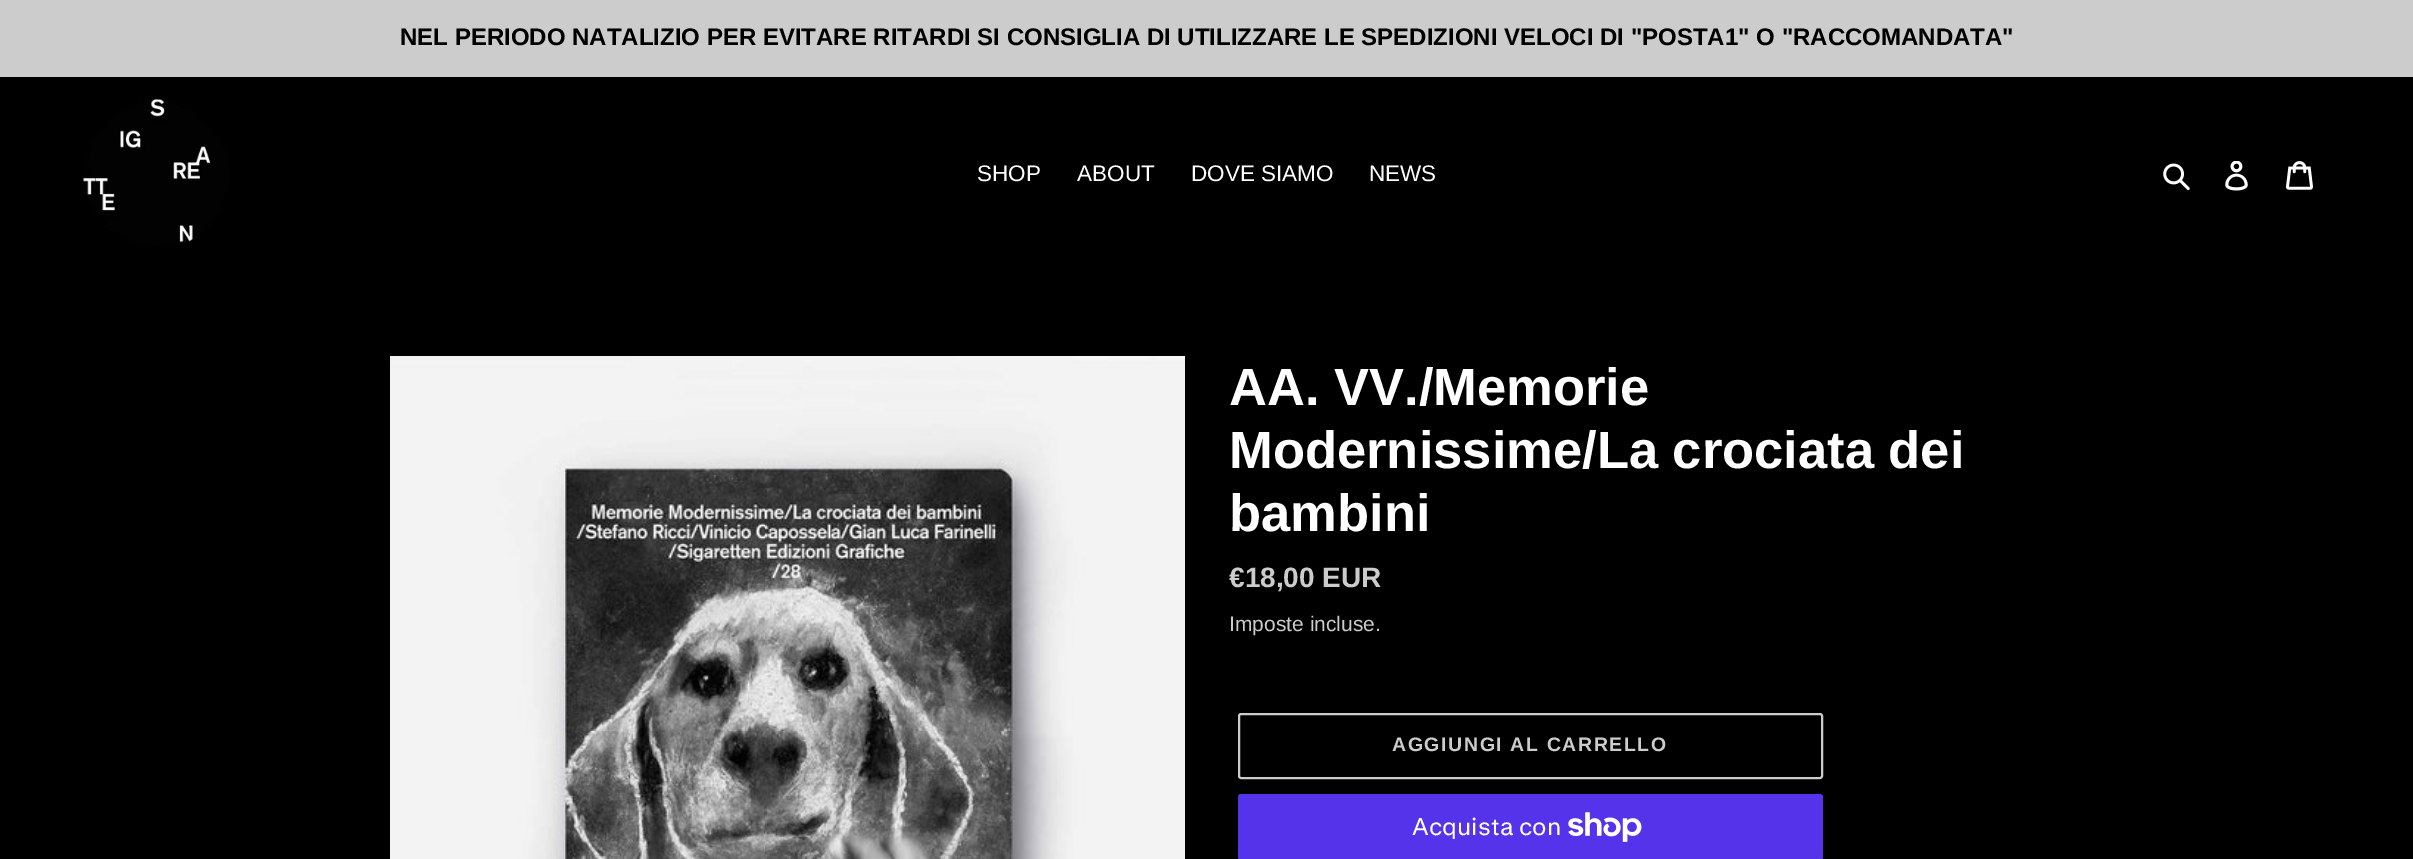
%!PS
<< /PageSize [2413 859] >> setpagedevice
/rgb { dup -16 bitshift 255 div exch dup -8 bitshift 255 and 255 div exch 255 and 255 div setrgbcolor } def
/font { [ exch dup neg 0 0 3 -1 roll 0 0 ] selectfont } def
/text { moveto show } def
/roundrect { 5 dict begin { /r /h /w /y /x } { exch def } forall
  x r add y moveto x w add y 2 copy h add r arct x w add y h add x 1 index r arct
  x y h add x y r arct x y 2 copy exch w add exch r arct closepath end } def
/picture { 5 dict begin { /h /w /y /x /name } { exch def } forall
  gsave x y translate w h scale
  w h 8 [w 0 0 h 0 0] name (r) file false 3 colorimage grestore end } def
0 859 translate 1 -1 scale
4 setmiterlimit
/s1 { /LiberationSans-Bold 24 font 16#000000 rgb } def
/s2 { /LiberationSans-Regular 22.5 font 16#FFFFFF rgb } def
/s3 { /LiberationSans-Bold 52.5 font 16#FFFFFF rgb } def
/s4 { /LiberationSans-Bold 28 font 16#CCCCCC rgb } def
/s5 { /LiberationSans-Regular 21 font 16#CCCCCC rgb } def
/s6 { /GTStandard-Regular 24 font 16#FFFFFF rgb } def
16#000000 rgb
0 0 2413 859 rectfill
16#CCCCCC rgb
0 0 2413 77 rectfill
s1
(NEL PERIODO NATALIZIO PER EVITARE RITARDI SI CONSIGLIA DI UTILIZZARE LE SPEDIZIONI VELOCI DI "POSTA1" O "RACCOMANDATA") 400 45 text
(pic1.raw) 83 99 147 146 picture
s2
(SHOP) 977 181 text
(ABOUT) 1077 181 text
(DOVE SIAMO) 1191 181 text
(NEWS) 1369 181 text
(pic2.raw) 2163 163 27 28 picture
(pic3.raw) 2225 161 23 30 picture
(pic4.raw) 2286 161 27 29 picture
(pic5.raw) 390 356 795 503 picture
s3
(AA. VV./Memorie) 1229 405 text
(Modernissime/La crociata dei) 1229 468 text
(bambini) 1229 531 text
s4
(€18,00 EUR) 1229 587 text
s5
(Imposte incluse.) 1229 631 text
2 setlinewidth
1239 714 583 64 2 roundrect stroke
/LiberationSans-Bold 19.5 font
1392 751 moveto 1.6 0 (AGGIUNGI AL CARRELLO) ashow
16#5433EB rgb
1238 794 585 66 3 roundrect fill
s6
(Acquista con) 1412 835 text
(pic6.raw) 1568 812 74 30 picture
showpage
